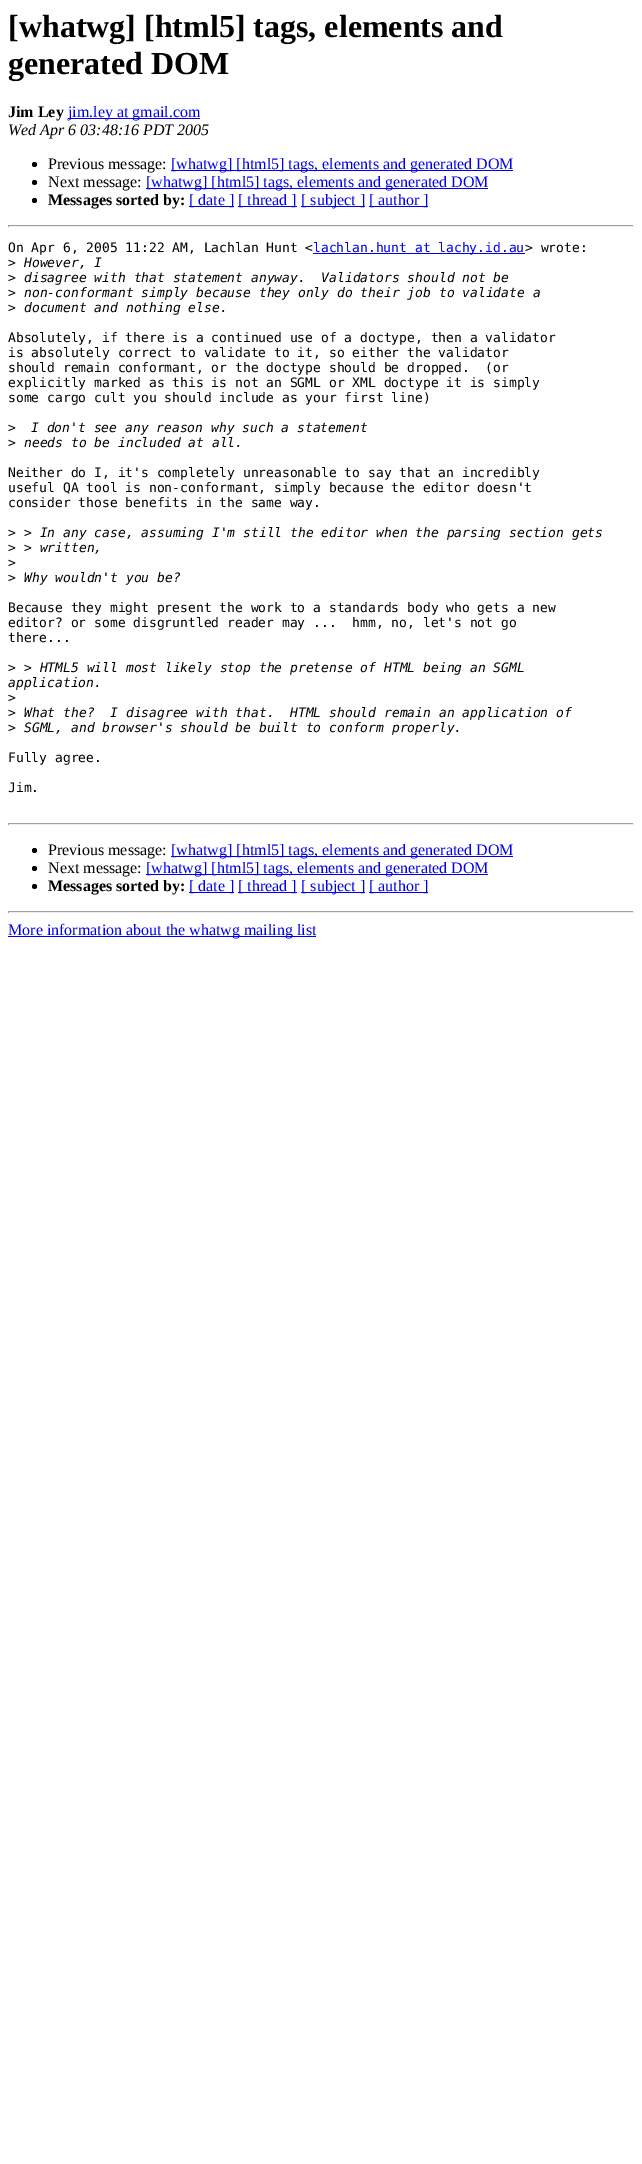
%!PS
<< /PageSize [642 2164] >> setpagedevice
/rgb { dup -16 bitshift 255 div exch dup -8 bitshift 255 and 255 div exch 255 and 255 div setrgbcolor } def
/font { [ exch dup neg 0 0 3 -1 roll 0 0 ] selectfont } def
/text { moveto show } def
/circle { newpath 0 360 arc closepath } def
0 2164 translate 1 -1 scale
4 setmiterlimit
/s1 { /LiberationSerif-Bold 32 font 16#000000 rgb } def
/s2 { /LiberationSerif-Bold 16 font 16#000000 rgb } def
/s3 { /LiberationSerif-Regular 16 font 16#0000EE rgb } def
/s4 { /LiberationSerif-Italic 16 font 16#000000 rgb } def
/s5 { /LiberationSerif-Regular 16 font 16#000000 rgb } def
/s6 { /DejaVuSansMono-Regular 13 font 16#000000 rgb } def
/s7 { /DejaVuSansMono-Regular 13 font 16#0000EE rgb } def
/s8 { /DejaVuSansMono-Italic 13 font 16#000000 rgb } def
16#FFFFFF rgb
0 0 642 2164 rectfill
s1
([whatwg] [html5] tags, elements and) 8 37 text
(generated DOM) 8 74 text
s2
(Jim Ley) 8 117 text
16#0000EE rgb
68 118 132 1 rectfill
s3
(jim.ley at gmail.com) 68 117 text
s4
(Wed Apr 6 03:48:16 PDT 2005) 8 135 text
34.5 164.5 2.5 circle fill
s5
(Previous message:) 48 169 text
16#0000EE rgb
171 170 342 1 rectfill
([whatwg] [html5] tags, elements and generated DOM) 171 169 text
16#000000 rgb
34.5 182.5 2.5 circle fill
(Next message:) 48 187 text
16#0000EE rgb
146 188 342 1 rectfill
([whatwg] [html5] tags, elements and generated DOM) 146 187 text
16#000000 rgb
34.5 200.5 2.5 circle fill
s2
(Messages sorted by:) 48 205 text
16#0000EE rgb
189 206 45 1 rectfill
s3
([ date ]) 189 205 text
238 206 59 1 rectfill
([ thread ]) 238 205 text
301 206 64 1 rectfill
([ subject ]) 301 205 text
369 206 59 1 rectfill
([ author ]) 369 205 text
16#9F9F9F rgb
8 225 626 1 rectfill
16#EEEEEE rgb
633 225 1 2 rectfill
8 226 626 1 rectfill
16#9F9F9F rgb
8 225 1 2 rectfill
s6
(On Apr 6, 2005 11:22 AM, Lachlan Hunt <) 8 252 text
16#0000EE rgb
313 253 212 1 rectfill
(lachlan.hunt at lachy.id.au) 313 252 text
s6
(> wrote:) 525 252 text
(>) 8 267 text
s8
(However, I) 24 267 text
s6
(>) 8 282 text
s8
(disagree with that statement anyway.  Validators should not be) 24 282 text
s6
(>) 8 297 text
s8
(non-conformant simply because they only do their job to validate a) 24 297 text
s6
(>) 8 312 text
s8
(document and nothing else.) 24 312 text
s6
(Absolutely, if there is a continued use of a doctype, then a validator) 8 342 text
(is absolutely correct to validate to it, so either the validator) 8 357 text
(should remain conformant, or the doctype should be dropped.  \(or) 8 372 text
(explicitly marked as this is not an SGML or XML doctype it is simply) 8 387 text
(some cargo cult you should include as your first line\)) 8 402 text
(>) 8 432 text
s8
(I don't see any reason why such a statement) 31 432 text
s6
(>) 8 447 text
s8
(needs to be included at all.) 24 447 text
s6
(Neither do I, it's completely unreasonable to say that an incredibly) 8 477 text
(useful QA tool is non-conformant, simply because the editor doesn't) 8 492 text
(consider those benefits in the same way.) 8 507 text
(>) 8 537 text
s8
(> In any case, assuming I'm still the editor when the parsing section gets) 24 537 text
s6
(>) 8 552 text
s8
(> written,) 24 552 text
s6
(>) 8 567 text
(>) 8 582 text
s8
(Why wouldn't you be?) 24 582 text
s6
(Because they might present the work to a standards body who gets a new) 8 612 text
(editor? or some disgruntled reader may ...  hmm, no, let's not go) 8 627 text
(there...) 8 642 text
(>) 8 672 text
s8
(> HTML5 will most likely stop the pretense of HTML being an SGML) 24 672 text
(application.) 8 687 text
s6
(>) 8 702 text
(>) 8 717 text
s8
(What the?  I disagree with that.  HTML should remain an application of) 24 717 text
s6
(>) 8 732 text
s8
(SGML, and browser's should be built to conform properly.) 24 732 text
s6
(Fully agree.) 8 762 text
(Jim.) 8 792 text
16#9F9F9F rgb
8 823 626 1 rectfill
16#EEEEEE rgb
633 823 1 2 rectfill
8 824 626 1 rectfill
16#9F9F9F rgb
8 823 1 2 rectfill
16#000000 rgb
34.5 850.5 2.5 circle fill
s5
(Previous message:) 48 855 text
16#0000EE rgb
171 856 342 1 rectfill
([whatwg] [html5] tags, elements and generated DOM) 171 855 text
16#000000 rgb
34.5 868.5 2.5 circle fill
(Next message:) 48 873 text
16#0000EE rgb
146 874 342 1 rectfill
([whatwg] [html5] tags, elements and generated DOM) 146 873 text
16#000000 rgb
34.5 886.5 2.5 circle fill
s2
(Messages sorted by:) 48 891 text
16#0000EE rgb
189 892 45 1 rectfill
s3
([ date ]) 189 891 text
238 892 59 1 rectfill
([ thread ]) 238 891 text
301 892 64 1 rectfill
([ subject ]) 301 891 text
369 892 59 1 rectfill
([ author ]) 369 891 text
16#9F9F9F rgb
8 911 626 1 rectfill
16#EEEEEE rgb
633 911 1 2 rectfill
8 912 626 1 rectfill
16#9F9F9F rgb
8 911 1 2 rectfill
16#0000EE rgb
8 936 308 1 rectfill
(More information about the whatwg mailing list) 8 935 text
showpage
